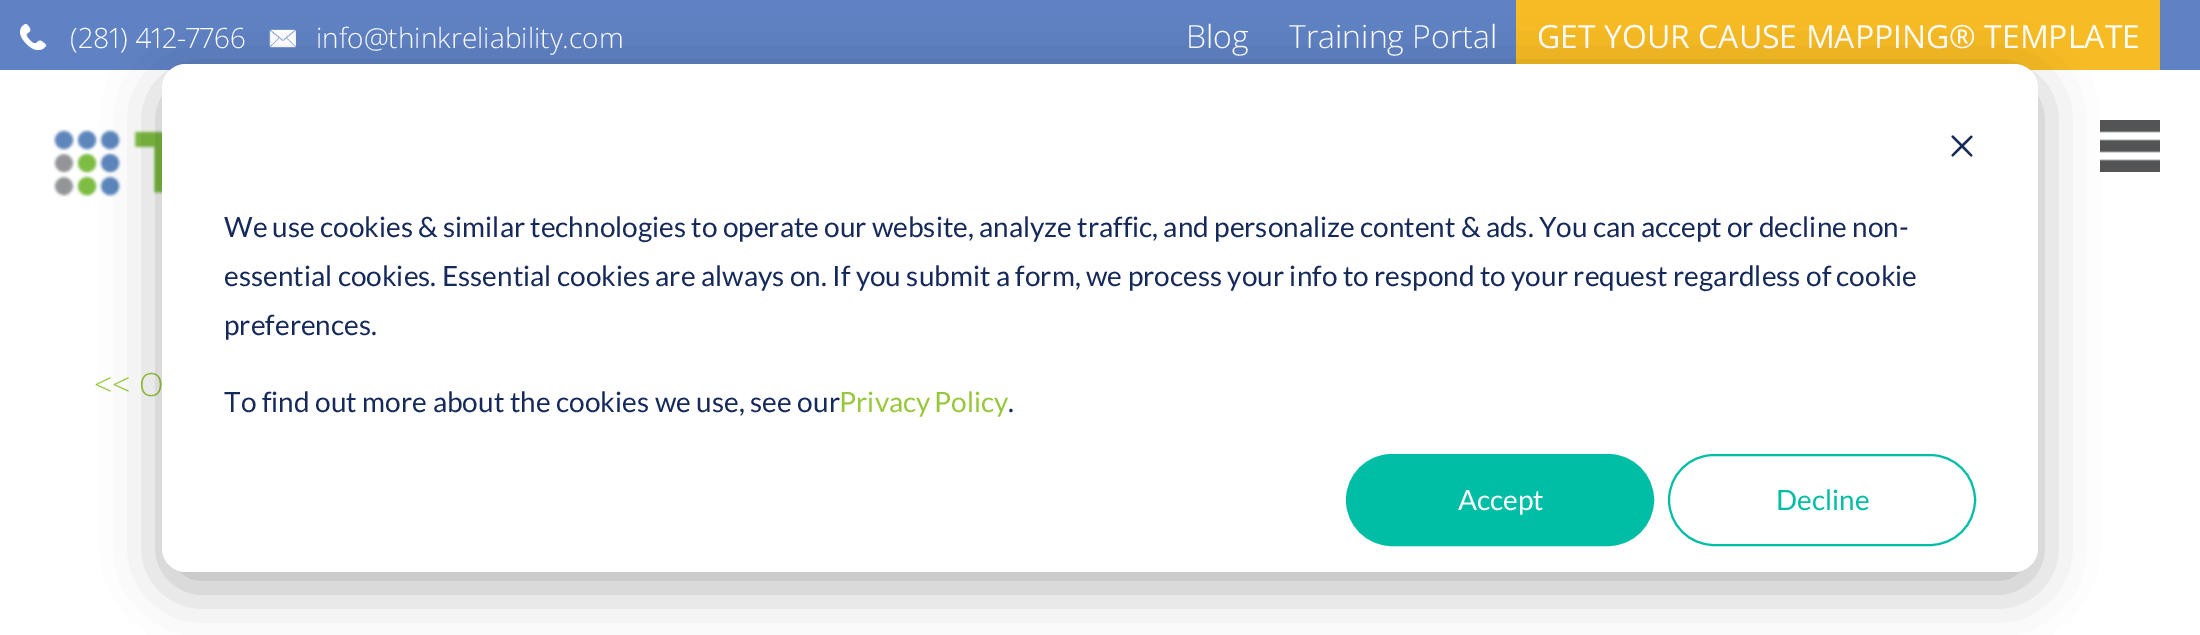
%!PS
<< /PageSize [2200 635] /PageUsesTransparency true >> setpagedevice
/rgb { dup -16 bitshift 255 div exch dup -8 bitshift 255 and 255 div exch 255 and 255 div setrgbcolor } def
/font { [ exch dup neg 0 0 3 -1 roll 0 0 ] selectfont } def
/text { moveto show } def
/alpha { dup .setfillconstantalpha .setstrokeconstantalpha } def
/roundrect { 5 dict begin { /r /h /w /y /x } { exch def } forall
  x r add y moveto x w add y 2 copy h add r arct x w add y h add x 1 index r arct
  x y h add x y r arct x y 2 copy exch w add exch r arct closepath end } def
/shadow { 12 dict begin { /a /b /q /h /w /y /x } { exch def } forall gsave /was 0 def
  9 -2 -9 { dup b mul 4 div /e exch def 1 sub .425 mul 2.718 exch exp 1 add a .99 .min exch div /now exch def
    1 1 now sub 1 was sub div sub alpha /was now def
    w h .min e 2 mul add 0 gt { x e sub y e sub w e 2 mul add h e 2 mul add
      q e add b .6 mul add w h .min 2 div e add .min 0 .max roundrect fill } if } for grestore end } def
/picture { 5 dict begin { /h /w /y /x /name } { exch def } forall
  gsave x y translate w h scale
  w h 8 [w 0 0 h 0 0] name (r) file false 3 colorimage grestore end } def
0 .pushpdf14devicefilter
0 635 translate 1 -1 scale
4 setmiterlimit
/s1 { /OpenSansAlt-Light 28 font 16#FFFFFF rgb } def
/s2 { /OpenSans-Light 28 font 16#FFFFFF rgb } def
/s3 { /OpenSans-Light 32 font 16#FFFFFF rgb } def
/s4 { /OpenSans-Regular 32 font 16#FFFFFF rgb } def
/s5 { /OpenSans-Light 32 font 16#97C83B rgb } def
/s6 { /Lato-Regular 28 font 16#15295A rgb } def
/s7 { /Lato-Regular 28 font 16#FFFFFF rgb } def
/s8 { /Lato-Regular 28 font 16#00BDA5 rgb } def
16#FFFFFF rgb
0 0 2200 635 rectfill
16#5F82C4 rgb
0 0 2200 70 rectfill
(pic1.raw) 20 24 27 26 picture
s1
(\(281\) 412-7766) 70 48 text
(pic2.raw) 269 29 27 19 picture
s2
(info@thinkreliability.com) 316 48 text
s3
(Blog) 1186 48 text
(Training Portal) 1289 48 text
16#F7BB24 rgb
1516 0 644 70 rectfill
s4
(GET YOUR CAUSE MAPPING® TEMPLATE) 1537 48 text
(pic3.raw) 53 129 109 69 picture
(pic4.raw) 2100 120 60 52 picture
s5
(<< O) 94 396 text
16#000000 rgb
162 80 1876 508 24 28 0.28 shadow
16#FFFFFF rgb
162 64 1876 508 24 roundrect fill
(pic5.raw) 1951 135 22 22 picture
/Lato-Regular 28 font
16#15295A rgb
224 237 moveto -0.2 0 32 (We use cookies & similar technologies to operate our website, analyze traffic, and personalize content & ads. You can accept or decline non-) widthshow
(essential cookies. Essential cookies are always on. If you submit a form, we process your info to respond to your request regardless of cookie) 224 286 text
(preferences.) 224 335 text
224 412 moveto 0.25 0 32 (To find out more about the cookies we use, see our) widthshow
16#97C83B rgb
839 412 moveto -2 0 32 (Privacy Policy) widthshow
s6
(.) 1008 412 text
16#00BDA5 rgb
1347 455 306 90 45 roundrect gsave fill grestore
2 setlinewidth
stroke
s7
(Accept) 1458 510 text
16#00BDA5 rgb
1669 455 306 90 45 roundrect stroke
(Decline) 1776 510 text
.poppdf14devicefilter showpage
